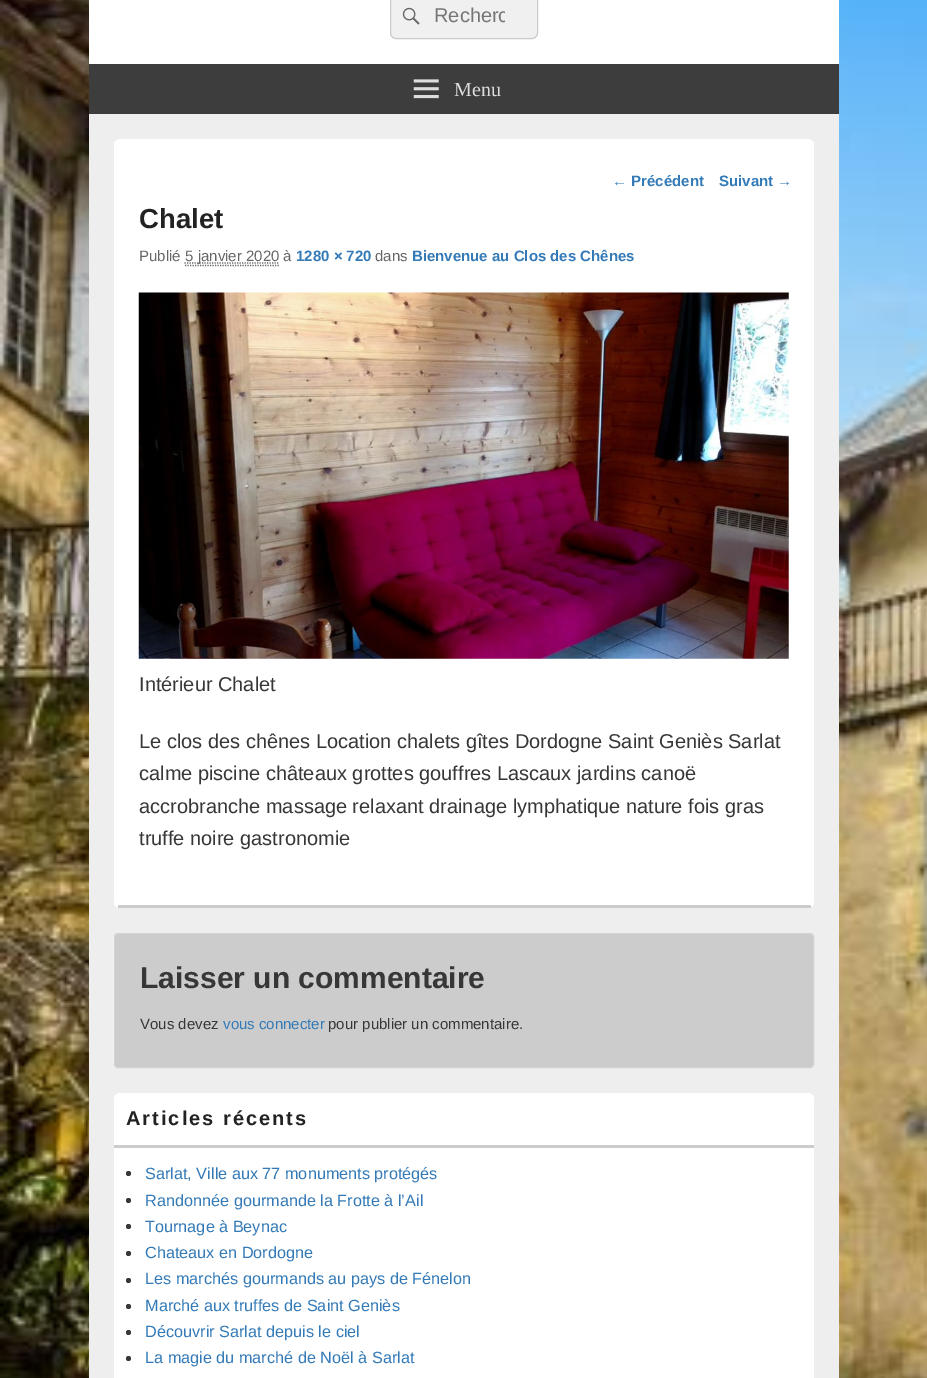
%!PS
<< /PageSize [927 1378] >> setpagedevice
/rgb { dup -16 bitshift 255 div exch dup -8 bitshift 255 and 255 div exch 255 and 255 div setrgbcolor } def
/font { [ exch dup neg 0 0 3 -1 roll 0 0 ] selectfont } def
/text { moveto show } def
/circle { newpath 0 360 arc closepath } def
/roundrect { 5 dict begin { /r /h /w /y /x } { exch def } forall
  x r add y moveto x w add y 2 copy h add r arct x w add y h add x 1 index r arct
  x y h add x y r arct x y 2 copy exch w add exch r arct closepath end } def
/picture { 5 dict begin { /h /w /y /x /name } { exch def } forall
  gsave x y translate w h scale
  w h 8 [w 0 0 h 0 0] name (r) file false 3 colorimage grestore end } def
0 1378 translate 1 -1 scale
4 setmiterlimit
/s1 { /LiberationSans-Regular 20 font 16#757575 rgb } def
/s2 { /LiberationSerif-Regular 20 font 16#DDDDDD rgb } def
/s3 { /LiberationSans-Bold 15 font 16#337AB7 rgb } def
/s4 { /LiberationSans-Bold 27.5 font 16#222222 rgb } def
/s5 { /LiberationSans-Regular 15 font 16#666666 rgb } def
/s6 { /LiberationSans-Regular 20 font 16#373737 rgb } def
/s7 { /LiberationSans-Bold 30 font 16#373737 rgb } def
/s8 { /LiberationSans-Regular 15 font 16#373737 rgb } def
/s9 { /LiberationSans-Regular 15 font 16#337AB7 rgb } def
/s10 { /LiberationSans-Regular 16.25 font 16#337AB7 rgb } def
16#FFFFFF rgb
0 0 927 1378 rectfill
(pic1.raw) 0 0 927 1378 picture
16#EEEEEE rgb
89 114 750 1264 rectfill
16#FFFFFF rgb
89 0 750 64 rectfill
16#F0F0F0 rgb
390.5 -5.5 147 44 5.5 roundrect gsave fill grestore
16#CCCCCC rgb
stroke
(pic2.raw) 402 7 18 18 picture
gsave
434 5 71 23 rectclip
s1
(Recherc) 434 22 text
grestore
16#3D3D3D rgb
89 64 750 50 rectfill
(pic3.raw) 413 79 26 20 picture
s2
(Menu) 454 96 text
16#FFFFFF rgb
114 139 700 769 6 roundrect fill
s3
(← Précédent) 612 186 text
(Suivant →) 719 186 text
16#CCCCCC rgb
118 905 693 3 rectfill
s4
(Chalet) 139 228 text
s5
(Publié) 139 261 text
1.2 setlinewidth
[1.25 1.25] 0 setdash
185 265.5 moveto 279 265.5 lineto stroke
184.5 263 moveto 279 263 lineto stroke
(5 janvier 2020 à) 185 261 text
s3
(1280 × 720) 296 261 text
s5
(dans) 375 261 text
s3
(Bienvenue au Clos des Chênes) 412 261 text
(pic4.raw) 138 292 651 367 picture
s6
(Intérieur Chalet) 139 691 text
(Le clos des chênes Location chalets gîtes Dordogne Saint Geniès Sarlat) 139 748 text
(calme piscine châteaux grottes gouffres Lascaux jardins canoë) 139 780 text
(accrobranche massage relaxant drainage lymphatique nature fois gras) 139 813 text
(truffe noire gastronomie) 139 845 text
16#CCCCCC rgb
114.5 933.5 699 134 3.5 roundrect gsave fill grestore
16#D3D3D3 rgb
1 setlinewidth
[] 0 setdash
stroke
s7
(Laisser un commentaire) 140 988 text
s8
(Vous devez) 140 1029 text
s9
(vous connecter) 223 1029 text
s8
(pour publier un commentaire.) 328 1029 text
16#FFFFFF rgb
114 1093 700 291 6 roundrect fill
16#CCCCCC rgb
114 1145 700 3 rectfill
/LiberationSans-Bold 20 font
16#222222 rgb
126 1125 moveto 2 0 (Articles récents) ashow
16#373737 rgb
128.5 1173.5 2.5 circle fill
s10
(Sarlat, Ville aux 77 monuments protégés) 145 1179 text
16#373737 rgb
128.5 1200.5 2.5 circle fill
s10
(Randonnée gourmande la Frotte à l’Ail) 145 1206 text
16#373737 rgb
128.5 1226.5 2.5 circle fill
s10
(Tournage à Beynac) 145 1232 text
16#373737 rgb
128.5 1253.5 2.5 circle fill
s10
(Chateaux en Dordogne) 145 1258 text
16#373737 rgb
128.5 1280.5 2.5 circle fill
s10
(Les marchés gourmands au pays de Fénelon) 145 1284 text
16#373737 rgb
128.5 1306.5 2.5 circle fill
s10
(Marché aux truffes de Saint Geniès) 145 1311 text
16#373737 rgb
128.5 1332.5 2.5 circle fill
s10
(Découvrir Sarlat depuis le ciel) 145 1337 text
16#373737 rgb
128.5 1358.5 2.5 circle fill
s10
(La magie du marché de Noël à Sarlat) 145 1363 text
showpage
